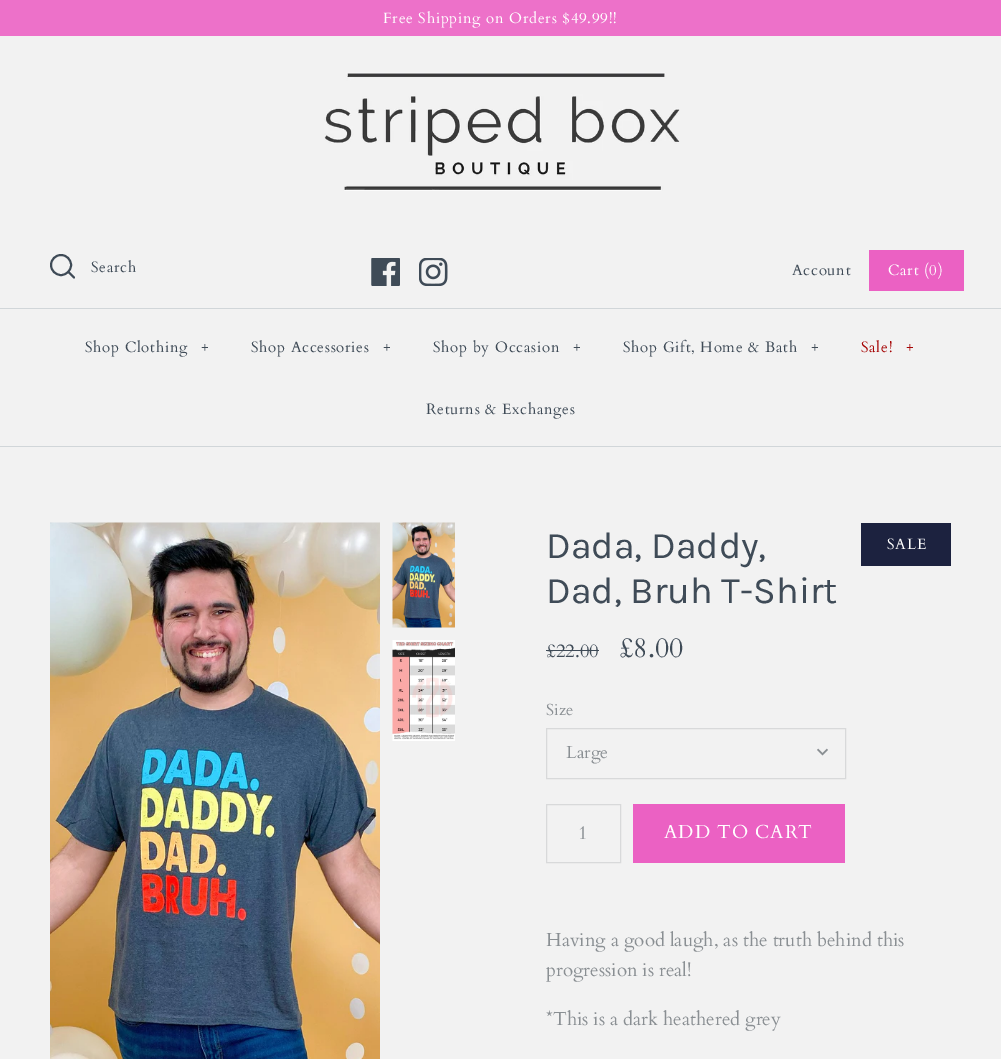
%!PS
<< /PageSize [1001 1059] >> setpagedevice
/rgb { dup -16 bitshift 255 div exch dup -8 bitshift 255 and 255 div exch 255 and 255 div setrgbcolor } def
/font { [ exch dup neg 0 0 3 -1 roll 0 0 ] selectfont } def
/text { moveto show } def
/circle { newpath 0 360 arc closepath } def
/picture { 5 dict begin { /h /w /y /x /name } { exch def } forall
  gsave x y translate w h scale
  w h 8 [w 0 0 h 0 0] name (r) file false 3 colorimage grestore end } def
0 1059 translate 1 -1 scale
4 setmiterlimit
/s1 { /Karla-Regular 37.5 font 16#3F4B57 rgb } def
/s2 { /Cardo-Regular 18.75 font 16#3F4B57 rgb } def
/s3 { /Cardo-Regular 28 font 16#3F4B57 rgb } def
/s4 { /Cardo-Regular 16 font 16#8A8F93 rgb } def
/s5 { /Cardo-Regular 17.5 font 16#8A8F93 rgb } def
/s6 { /Cardo-Regular 18.75 font 16#8A8F93 rgb } def
16#F2F2F2 rgb
0 0 1001 1059 rectfill
16#ED71C9 rgb
0 0 1001 36 rectfill
/Cardo-Regular 15 font
16#FFFFFF rgb
383 23 moveto 0.75 0 (Free Shipping on Orders $49.99!!) ashow
(pic1.raw) 324 72 356 119 picture
16#3F4B57 rgb
1.9 setlinewidth
61 265 10 circle stroke
1 setlinecap
1 setlinejoin
74 277.5 moveto 68.5 272 lineto stroke
91 272 moveto 0.75 0 (Search) ashow
(pic2.raw) 371 258 29 28 picture
(pic3.raw) 419 258 29 28 picture
792 275 moveto 0.75 0 (Account) ashow
16#EB61C3 rgb
869 250 95 41 rectfill
16#FFFFFF rgb
888 275 moveto 0.75 0 (Cart \(0\)) ashow
16#D1D6D9 rgb
0 446 1001 1 rectfill
0 308 1001 1 rectfill
16#3F4B57 rgb
85 352 moveto 0.75 0 (Shop Clothing) ashow
201 352 moveto 0.75 0 (+) ashow
251 352 moveto 0.75 0 (Shop Accessories) ashow
383 352 moveto 0.75 0 (+) ashow
433 352 moveto 0.75 0 (Shop by Occasion) ashow
573 352 moveto 0.75 0 (+) ashow
623 352 moveto 0.75 0 (Shop Gift, Home & Bath) ashow
811 352 moveto 0.75 0 (+) ashow
16#A60505 rgb
861 352 moveto 0.75 0 (Sale!) ashow
906 352 moveto 0.75 0 (+) ashow
16#3F4B57 rgb
426 414 moveto 0.75 0 (Returns & Exchanges) ashow
(pic4.raw) 50 522 330 537 picture
(pic5.raw) 392 522 63 106 picture
(pic6.raw) 392 640 63 101 picture
s1
(Dada, Daddy,) 546 558 text
(Dad, Bruh T-Shirt) 546 603 text
16#1C223F rgb
861 523 90 43 rectfill
/Cardo-Regular 15 font
16#FFFFFF rgb
887 549 moveto 0.75 0 (SALE) ashow
s2
(£22.00) 546 657 text
546 650 53 1 rectfill
s3
(£8.00) 619 657 text
s4
(Size) 546 715 text
16#D8D9DA rgb
1 setlinewidth
0 setlinecap
0 setlinejoin
546.5 728.5 299 50 rectstroke
s5
(Large) 566 758 text
(pic7.raw) 817 748 11 8 picture
16#D8D9DA rgb
546.5 804.5 74 58 rectstroke
s6
(1) 578 839 text
16#EB61C3 rgb
633 804 212 59 rectfill
16#FFFFFF rgb
664 838 moveto 1 0 (ADD TO CART) ashow
s6
(Having a good laugh, as the truth behind this) 546 946 text
(progression is real!) 546 976 text
(*This is a dark heathered grey) 546 1025 text
showpage
